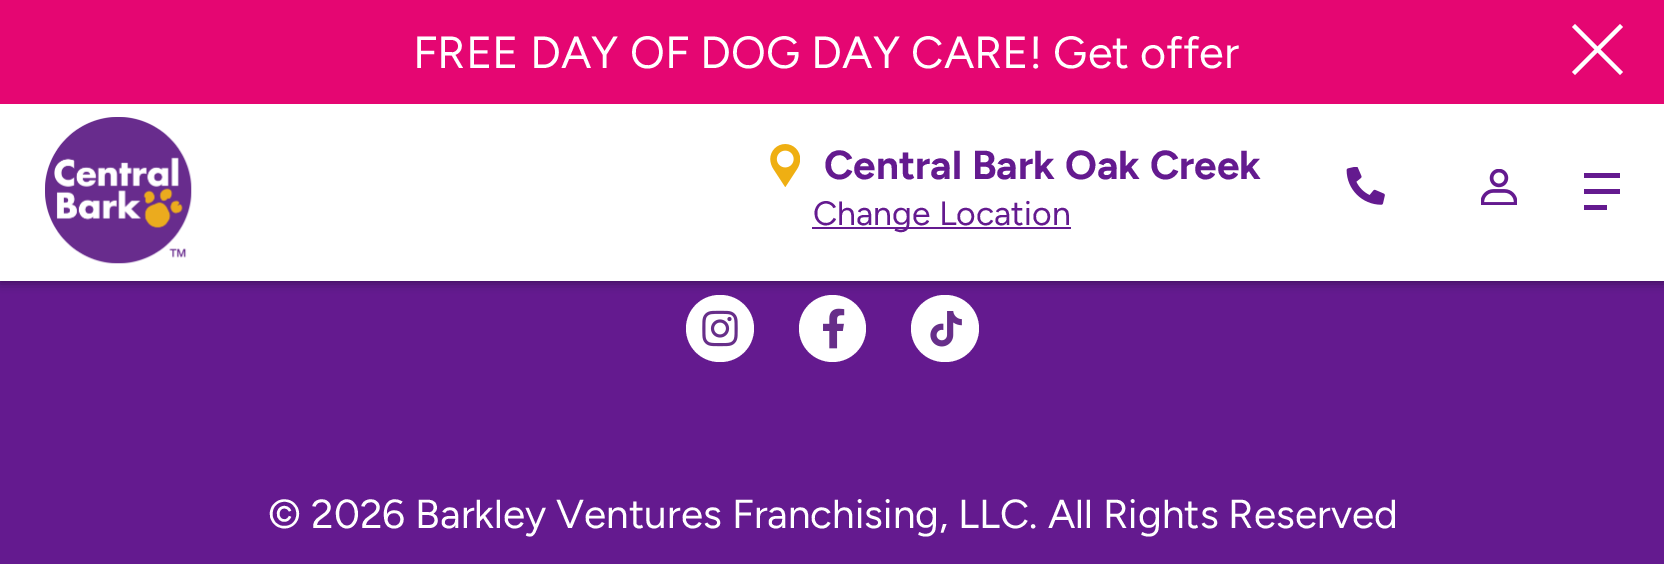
%!PS
<< /PageSize [1664 564] /PageUsesTransparency true >> setpagedevice
/rgb { dup -16 bitshift 255 div exch dup -8 bitshift 255 and 255 div exch 255 and 255 div setrgbcolor } def
/font { [ exch dup neg 0 0 3 -1 roll 0 0 ] selectfont } def
/text { moveto show } def
/alpha { dup .setfillconstantalpha .setstrokeconstantalpha } def
/circle { newpath 0 360 arc closepath } def
/roundrect { 5 dict begin { /r /h /w /y /x } { exch def } forall
  x r add y moveto x w add y 2 copy h add r arct x w add y h add x 1 index r arct
  x y h add x y r arct x y 2 copy exch w add exch r arct closepath end } def
/shadow { 12 dict begin { /a /b /q /h /w /y /x } { exch def } forall gsave /was 0 def
  9 -2 -9 { dup b mul 4 div /e exch def 1 sub .425 mul 2.718 exch exp 1 add a .99 .min exch div /now exch def
    1 1 now sub 1 was sub div sub alpha /was now def
    w h .min e 2 mul add 0 gt { x e sub y e sub w e 2 mul add h e 2 mul add
      q e add b .6 mul add w h .min 2 div e add .min 0 .max roundrect fill } if } for grestore end } def
/picture { 5 dict begin { /h /w /y /x /name } { exch def } forall
  gsave x y translate w h scale
  w h 8 [w 0 0 h 0 0] name (r) file false 3 colorimage grestore end } def
0 .pushpdf14devicefilter
0 564 translate 1 -1 scale
4 setmiterlimit
/s1 { /Figtree-Regular 45 font 16#FFFFFF rgb } def
/s2 { /Figtree-Bold 40.5 font 16#641A8F rgb } def
/s3 { /Figtree-Regular 33.75 font 16#641A8F rgb } def
/s4 { /Figtree-Regular 40.5 font 16#FFFFFF rgb } def
16#641A8F rgb
0 0 1664 564 rectfill
16#FFFFFF rgb
686 295 68 67 33.5 roundrect fill
832.5 328.5 33.5 circle fill
911 295 68 67 33.5 roundrect fill
16#000000 rgb
0 104 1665 177 0 5.5 0.5 shadow
16#E50672 rgb
0 0 1664 104 rectfill
s1
(FREE DAY OF DOG DAY CARE! Get offer) 413 68 text
1623 27 moveto 1575 75 lineto 1572 72 lineto 1620 24 lineto closepath fill
1620 75 moveto 1572 27 lineto 1575 24 lineto 1623 72 lineto closepath fill
0 104 1664 177 rectfill
(pic1.raw) 45 117 147 147 picture
(pic2.raw) 770 144 30 43 picture
s2
(Central Bark Oak Creek) 824 179 text
812 227 259 2 rectfill
s3
(Change Location) 813 225 text
(pic3.raw) 1346 167 39 38 picture
(pic4.raw) 1481 169 36 36 picture
1584 173 36 5 rectfill
1584 189 36 5 rectfill
1584 205 23 5 rectfill
(pic5.raw) 702 310 36 37 picture
(pic6.raw) 823 308 22 41 picture
(pic7.raw) 930 311 32 36 picture
s4
(© 2026 Barkley Ventures Franchising, LLC. All Rights Reserved) 268 528 text
.poppdf14devicefilter showpage
